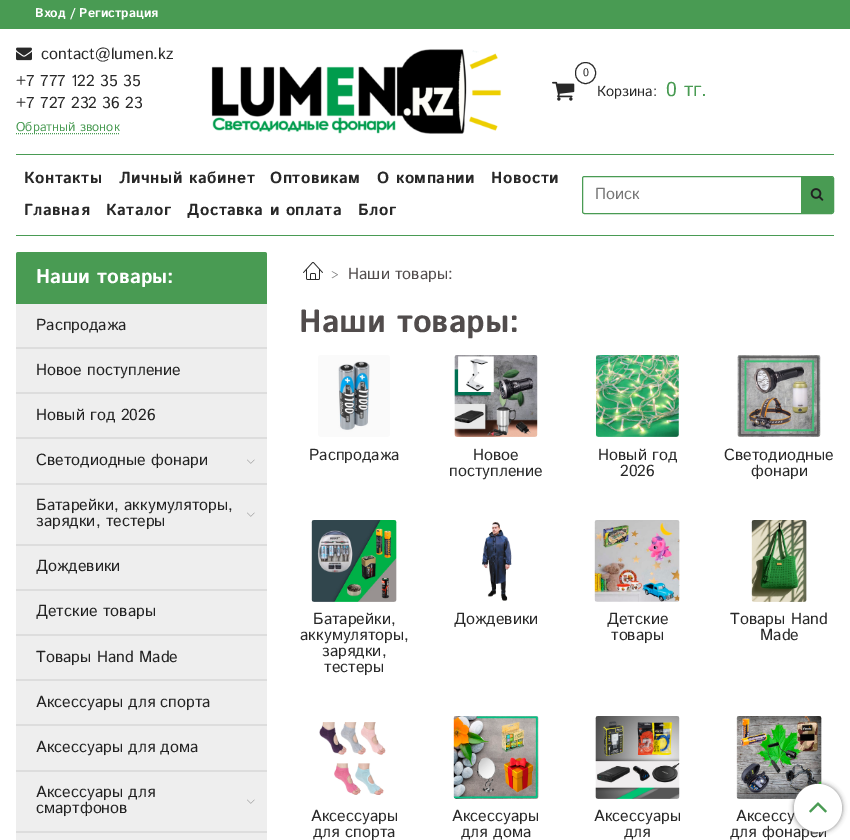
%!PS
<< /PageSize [850 840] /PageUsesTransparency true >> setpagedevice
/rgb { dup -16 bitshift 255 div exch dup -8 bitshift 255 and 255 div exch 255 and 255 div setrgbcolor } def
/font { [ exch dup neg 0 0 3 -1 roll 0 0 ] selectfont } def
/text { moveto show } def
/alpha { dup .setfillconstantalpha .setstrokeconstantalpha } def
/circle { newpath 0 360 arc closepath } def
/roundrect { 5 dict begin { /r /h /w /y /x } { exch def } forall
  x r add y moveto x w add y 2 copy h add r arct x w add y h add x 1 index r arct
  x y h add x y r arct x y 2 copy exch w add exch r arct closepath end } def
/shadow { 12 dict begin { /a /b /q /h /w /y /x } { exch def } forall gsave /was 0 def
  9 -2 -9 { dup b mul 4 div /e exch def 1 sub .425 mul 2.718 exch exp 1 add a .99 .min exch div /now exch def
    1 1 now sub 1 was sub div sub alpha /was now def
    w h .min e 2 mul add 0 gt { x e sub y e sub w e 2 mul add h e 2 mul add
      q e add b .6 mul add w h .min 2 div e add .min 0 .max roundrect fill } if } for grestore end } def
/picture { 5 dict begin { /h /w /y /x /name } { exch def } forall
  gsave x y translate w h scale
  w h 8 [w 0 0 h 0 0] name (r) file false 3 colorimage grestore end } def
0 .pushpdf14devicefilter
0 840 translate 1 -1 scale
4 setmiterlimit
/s1 { /IstokWeb-Bold 12.75 font 16#FFFFFF rgb } def
/s2 { /IstokWeb-Regular 16 font 16#282828 rgb } def
/s3 { /IstokWeb-Regular 12.75 font 16#499B53 rgb } def
/s4 { /IstokWeb-Regular 11 font 16#282828 rgb } def
/s5 { /IstokWeb-Regular 14.5 font 16#282828 rgb } def
/s6 { /IstokWeb-Regular 20 font 16#499B53 rgb } def
/s7 { /IstokWeb-Regular 16 font 16#757575 rgb } def
/s8 { /IstokWeb-Bold 20 font 16#FFFFFF rgb } def
/s9 { /IstokWeb-Regular 16 font 16#222222 rgb } def
/s10 { /IstokWeb-Regular 12 font 16#757575 rgb } def
/s11 { /IstokWeb-Regular 16 font 16#514C4C rgb } def
/s12 { /IstokWeb-Bold 32 font 16#514C4C rgb } def
16#FFFFFF rgb
0 0 850 840 rectfill
16#499B53 rgb
0 0 850 29 rectfill
s1
(Вход / Регистрация) 35 17 text
(pic1.raw) 16 47 16 14 picture
s2
(contact@lumen.kz) 41 59 text
(+7 777 122 35 35) 16 86 text
(+7 727 232 36 23) 16 108 text
16#499B53 rgb
[1 1] 0 setdash
16 133.5 moveto 120 133.5 lineto stroke
s3
(Обратный звонок) 16 131 text
(pic2.raw) 211 49 291 85 picture
16#282828 rgb
[] 0 setdash
575.5 62.5 20 21 10 roundrect stroke
s4
(0) 583 76 text
(pic3.raw) 552 81 23 20 picture
s5
(Корзина:) 597 96 text
s6
(0 тг.) 666 96 text
16 154 818 1 rectfill
16 235 818 1 rectfill
/IstokWeb-Bold 16 font
16#282828 rgb
24 183 moveto 0.5 0 (Контакты) ashow
119 183 moveto 0.5 0 (Личный кабинет) ashow
270 183 moveto 0.5 0 (Оптовикам) ashow
377 183 moveto 0.5 0 (О компании) ashow
491 183 moveto 0.5 0 (Новости) ashow
24 215 moveto 0.5 0 (Главная) ashow
106 215 moveto 0.5 0 (Каталог) ashow
187 215 moveto 0.5 0 (Доставка и оплата) ashow
358 215 moveto 0.5 0 (Блог) ashow
16#499B53 rgb
582.5 176.5 251 37 2 roundrect stroke
s7
(Поиск) 595 199 text
16#499B53 rgb
801 177 moveto 831.5 177 lineto 832.5 177 833 177.5 833 178.5 curveto 833 211.5 lineto 833 212.5 832.5 213 831.5 213 curveto 801 213 lineto closepath fill
(pic4.raw) 810 188 14 13 picture
18.5 252 moveto 264.5 252 lineto 266 252 267 253 267 254.5 curveto 267 304 lineto 16 304 lineto 16 254.5 lineto 16 253 17 252 18.5 252 curveto closepath fill
s8
(Наши товары:) 36 283 text
16#EEEEEE rgb
16 304 251 536 rectfill
16#DDDDDD rgb
16 347 251 2 rectfill
s9
(Распродажа) 36 330 text
16#DDDDDD rgb
16 392 251 2 rectfill
s9
(Новое поступление) 36 375 text
16#DDDDDD rgb
16 437 251 2 rectfill
s9
(Новый год 2026) 36 420 text
16#DDDDDD rgb
16 483 251 2 rectfill
s9
(Светодиодные фонари) 36 465 text
(pic5.raw) 247 459 8 5 picture
16#DDDDDD rgb
16 544 251 2 rectfill
s9
(Батарейки, аккумуляторы,) 36 510 text
(зарядки, тестеры) 36 526 text
(pic5.raw) 247 512 8 5 picture
16#DDDDDD rgb
16 589 251 2 rectfill
s9
(Дождевики) 36 571 text
16#DDDDDD rgb
16 634 251 2 rectfill
s9
(Детские товары) 36 616 text
16#DDDDDD rgb
16 679 251 2 rectfill
s9
(Товары Hand Made) 36 662 text
16#DDDDDD rgb
16 724 251 2 rectfill
s9
(Аксессуары для спорта) 36 707 text
16#DDDDDD rgb
16 770 251 2 rectfill
s9
(Аксессуары для дома) 36 752 text
16#DDDDDD rgb
16 831 251 2 rectfill
s9
(Аксессуары для) 36 797 text
(смартфонов) 36 813 text
(pic5.raw) 247 799 8 5 picture
(pic6.raw) 303 262 20 18 picture
s10
(>) 331 279 text
s11
(Наши товары:) 348 279 text
s12
(Наши товары:) 299 332 text
(pic7.raw) 318 355 72 82 picture
s2
(Распродажа) 309 460 text
(pic8.raw) 454 355 84 82 picture
(Новое) 473 460 text
(поступление) 449 476 text
(pic9.raw) 595 355 84 82 picture
(Новый год) 598 460 text
(2026) 620 476 text
(pic10.raw) 737 355 84 82 picture
(Светодиодные) 724 460 text
(фонари) 751 476 text
(pic11.raw) 311 520 86 82 picture
(Батарейки,) 313 624 text
(аккумуляторы,) 300 640 text
(зарядки,) 322 656 text
(тестеры) 324 672 text
(pic12.raw) 482 522 30 79 picture
(Дождевики) 454 624 text
(pic13.raw) 594 520 86 82 picture
(Детские) 607 624 text
(товары) 611 640 text
(pic14.raw) 751 520 56 82 picture
(Товары Hand) 730 624 text
(Made) 760 640 text
(pic15.raw) 319 722 67 73 picture
(Аксессуары) 311 821 text
(для спорта) 313 837 text
(pic16.raw) 453 716 86 83 picture
(Аксессуары) 452 821 text
(для дома) 461 837 text
(pic17.raw) 595 716 85 83 picture
(Аксессуары) 594 821 text
(для) 624 837 text
(pic18.raw) 736 716 86 83 picture
(Аксессу) 736 821 text
(для фонарей) 730 837 text
16#777777 rgb
794 784 48 48 24 2.5 1 shadow
16#FFFFFF rgb
818 808 24 circle fill
(pic19.raw) 809 802 18 11 picture
.poppdf14devicefilter showpage
